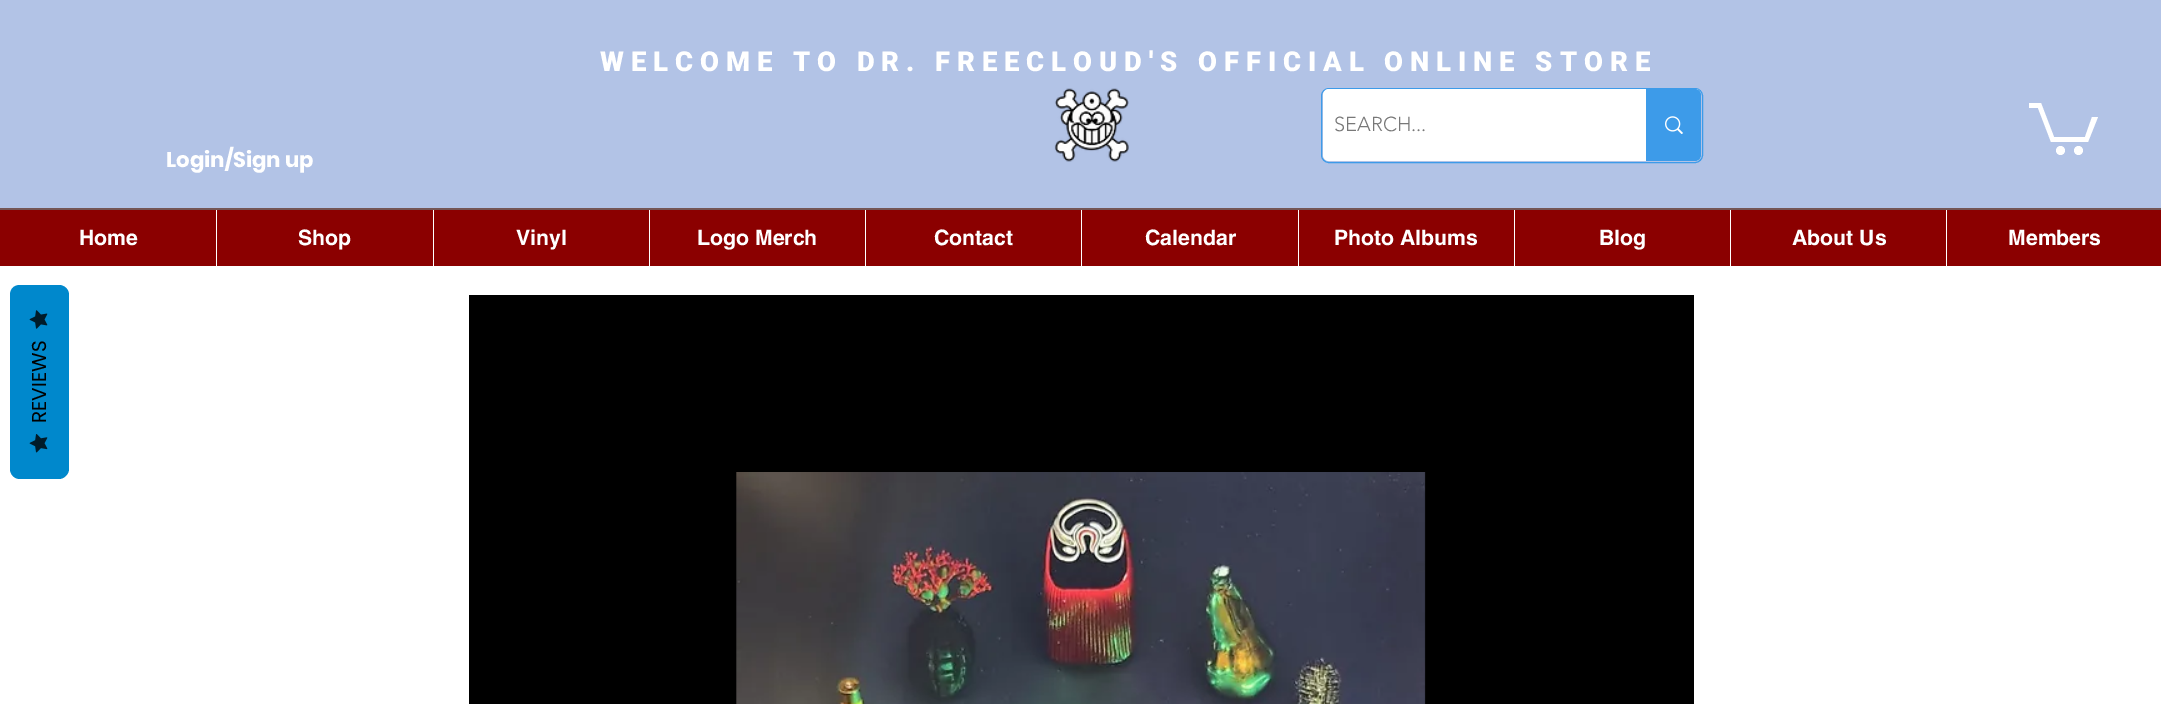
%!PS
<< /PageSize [2161 704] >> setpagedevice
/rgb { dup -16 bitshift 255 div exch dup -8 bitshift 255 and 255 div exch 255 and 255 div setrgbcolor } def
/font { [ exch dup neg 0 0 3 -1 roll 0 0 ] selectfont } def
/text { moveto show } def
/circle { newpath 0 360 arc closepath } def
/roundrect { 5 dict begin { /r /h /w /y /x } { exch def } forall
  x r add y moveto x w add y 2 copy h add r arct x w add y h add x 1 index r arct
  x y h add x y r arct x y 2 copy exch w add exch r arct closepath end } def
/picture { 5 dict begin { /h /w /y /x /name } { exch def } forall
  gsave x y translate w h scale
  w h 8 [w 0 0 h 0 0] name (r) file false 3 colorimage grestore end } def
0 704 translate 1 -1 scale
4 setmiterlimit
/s1 { /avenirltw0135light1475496-Light 20 font 16#787878 rgb } def
/s2 { /Poppins-Bold 21.25 font 16#FFFFFF rgb } def
/s3 { /helvetica-Bold 21.25 font 16#FFFFFF rgb } def
16#FFFFFF rgb
0 0 2161 704 rectfill
16#B2C3E6 rgb
0 0 2161 208 rectfill
/Roboto-Black 27.5 font
16#FFFFFF rgb
600 71 moveto 6.9 0 (WELCOME TO DR. FREECLOUD'S OFFICIAL ONLINE STORE) ashow
(pic1.raw) 1054 88 75 74 picture
16#3D9BE9 rgb
1321.5 88.5 381 74 7.5 roundrect stroke
16#FFFFFF rgb
1323 89 378 72 6 roundrect fill
s1
(SEARCH...) 1334 131 text
16#3D9BE9 rgb
1646 89 moveto 1695 89 lineto 1698.5 89 1701 91.5 1701 95 curveto 1701 155 lineto 1701 158.5 1698.5 161 1695 161 curveto 1646 161 lineto closepath fill
(pic2.raw) 1665 116 18 18 picture
s2
(Login/Sign up) 166 167 text
16#745656 rgb
0 208 2161 2 rectfill
16#FFFFFF rgb
2098 117 moveto 2088 142 lineto 2051 142 lineto 2038 108 lineto 2029 108 lineto 2029 103 lineto 2041 103 lineto 2054 137 lineto 2085 137 lineto 2092 117 lineto fill
2078.5 150.5 4.5 circle fill
2060.5 150.5 4.5 circle fill
16#8B0000 rgb
0 210 2161 56 rectfill
s3
(Home) 79 245 text
216 210 1 56 rectfill
(Shop) 298 245 text
433 210 1 56 rectfill
(Vinyl) 516 245 text
649 210 1 56 rectfill
(Logo Merch) 697 245 text
865 210 1 56 rectfill
(Contact) 934 245 text
1081 210 1 56 rectfill
(Calendar) 1145 245 text
1298 210 1 56 rectfill
(Photo Albums) 1334 245 text
1514 210 1 56 rectfill
(Blog) 1599 245 text
1730 210 1 56 rectfill
(About Us) 1792 245 text
1946 210 1 56 rectfill
(Members) 2008 245 text
16#000000 rgb
469 295 1225 409 rectfill
(pic3.raw) 736 472 690 232 picture
16#0088CC rgb
10 469 moveto 10 295 lineto 10 289 14 285 20 285 curveto 59 285 lineto 64 285 69 289 69 295 curveto 69 469 lineto 69 474 64 479 59 479 curveto 20 479 lineto 14 479 10 474 10 469 curveto closepath fill
(pic4.raw) 29 310 19 19 picture
/Poppins-Regular 20 font
16#000000 rgb
gsave 46 423 translate -90 rotate 0 0 moveto (REVIEWS) show grestore
(pic5.raw) 29 434 19 19 picture
showpage
